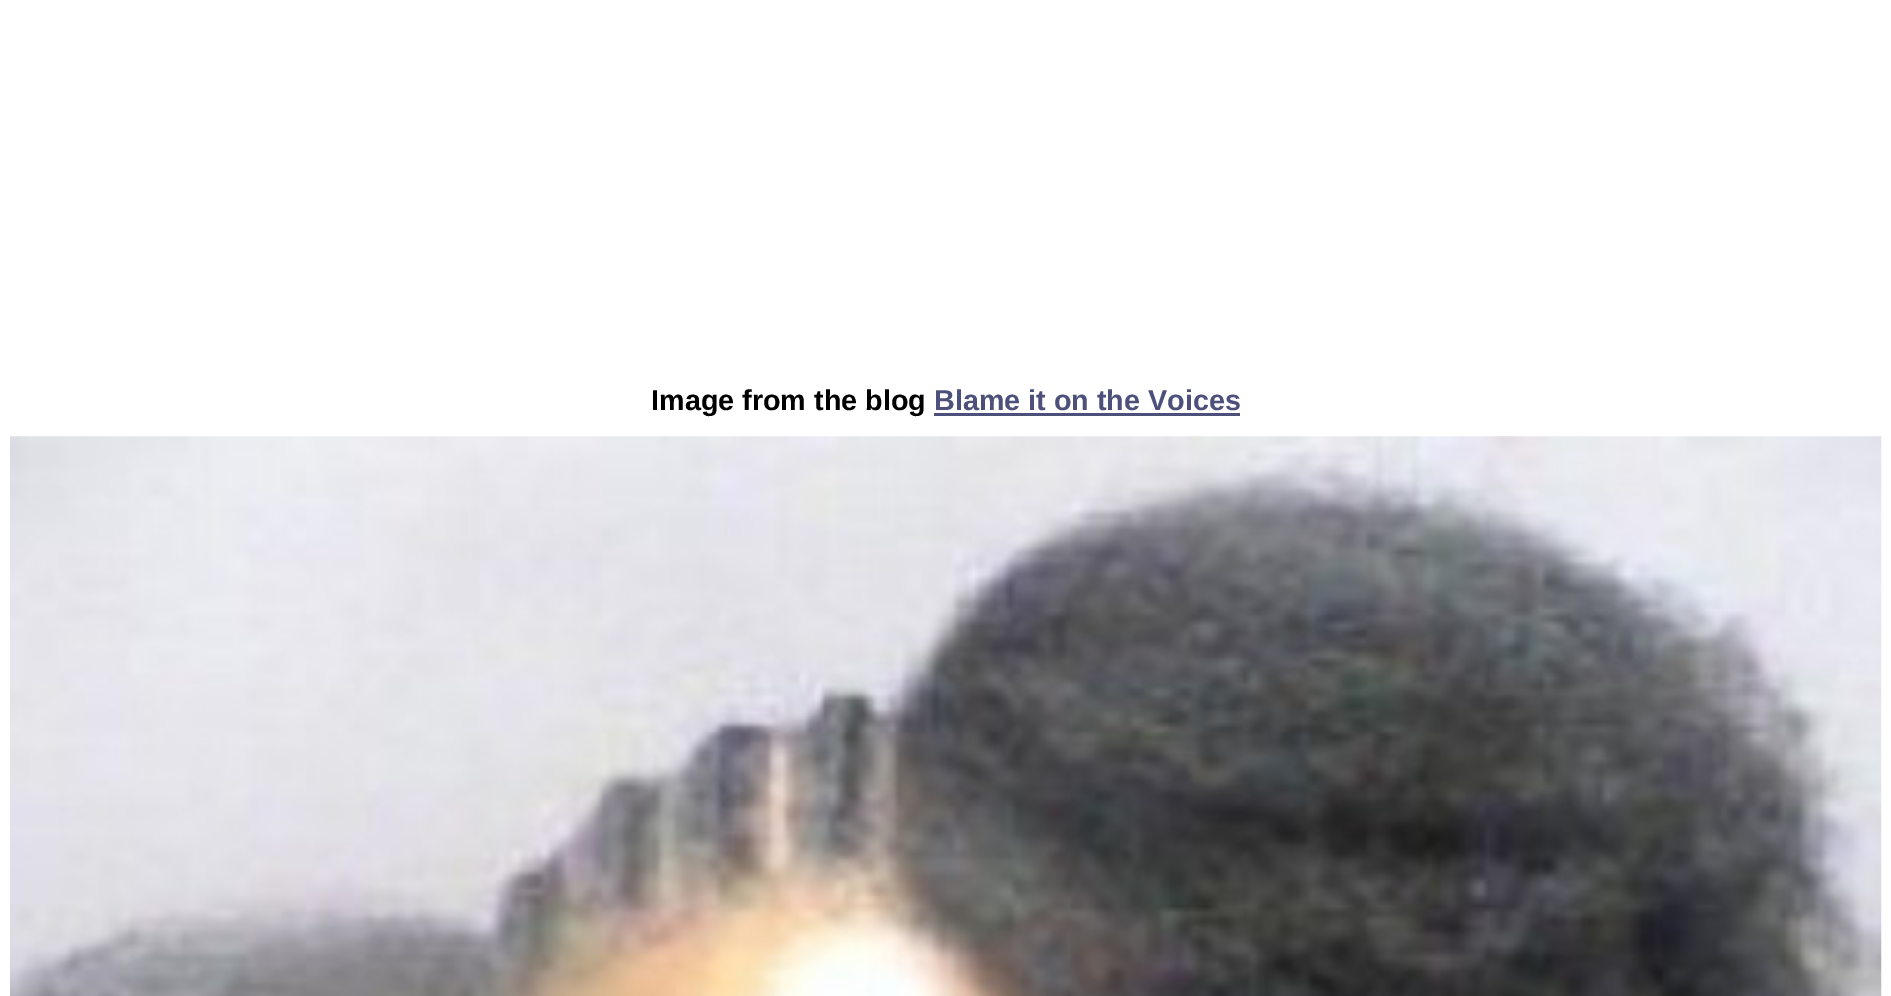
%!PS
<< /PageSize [1891 996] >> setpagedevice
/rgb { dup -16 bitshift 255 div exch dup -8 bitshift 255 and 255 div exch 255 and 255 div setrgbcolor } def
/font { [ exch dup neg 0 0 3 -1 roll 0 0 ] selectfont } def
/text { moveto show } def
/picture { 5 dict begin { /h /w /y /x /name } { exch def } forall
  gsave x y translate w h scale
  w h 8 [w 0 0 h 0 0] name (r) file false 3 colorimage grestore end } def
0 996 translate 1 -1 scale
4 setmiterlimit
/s1 { /LiberationSans-Bold 28.75 font 16#000000 rgb } def
/s2 { /LiberationSans-Bold 28.75 font 16#4C507A rgb } def
16#FFFFFF rgb
0 0 1891 996 rectfill
s1
(Image from the blog) 651 410 text
s2
(Blame it on the Voices) 934 410 text
934 413 306 3 rectfill
(pic1.raw) 10 436 1872 560 picture
showpage
